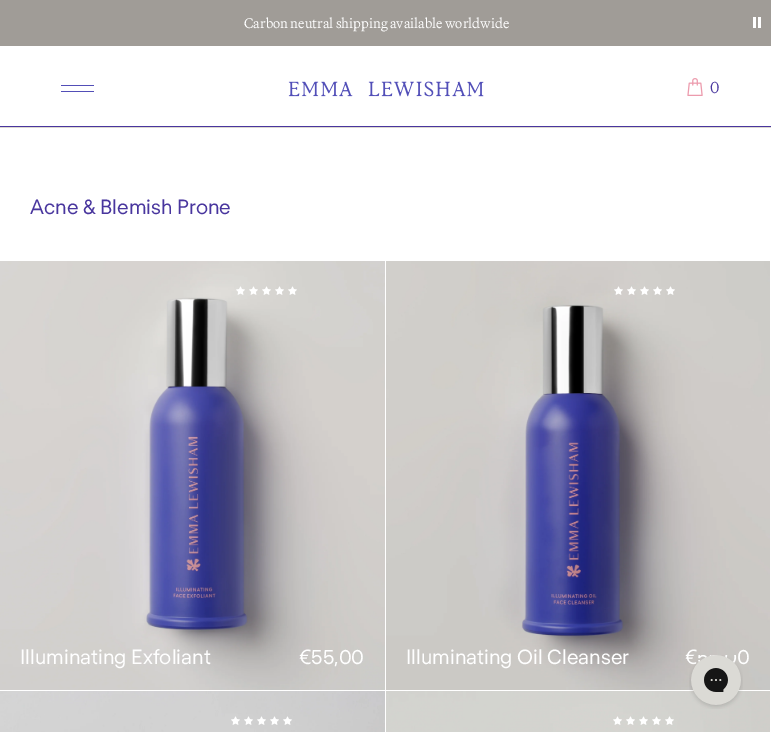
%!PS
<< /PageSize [771 732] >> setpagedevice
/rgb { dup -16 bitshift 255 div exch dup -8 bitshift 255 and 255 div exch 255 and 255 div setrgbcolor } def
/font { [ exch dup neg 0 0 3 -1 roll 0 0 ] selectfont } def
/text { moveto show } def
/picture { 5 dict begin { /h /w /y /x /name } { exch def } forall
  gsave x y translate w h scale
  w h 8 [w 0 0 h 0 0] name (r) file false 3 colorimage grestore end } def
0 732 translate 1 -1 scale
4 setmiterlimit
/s1 { /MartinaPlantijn-Light 14 font 16#FFFFFF rgb } def
/s2 { /MartinaPlantijn-Light 16 font 16#49369E rgb } def
/s3 { /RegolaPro-Regular 20 font 16#49369E rgb } def
/s4 { /RegolaPro-Regular 20 font 16#FFFFFF rgb } def
16#FFFFFF rgb
0 0 771 732 rectfill
16#A09C97 rgb
0 0 771 46 rectfill
s1
(Carbon neutral shipping available worldwide) 244 28 text
753 17 3 11 rectfill
758 17 3 11 rectfill
16#49369E rgb
0 126 771 1 rectfill
16#524EB7 rgb
61 85 33 1 rectfill
61 91 33 1 rectfill
(pic1.raw) 288 81 196 16 picture
(pic2.raw) 687 78 16 18 picture
s2
(0) 710 93 text
16#DBD7D0 rgb
0 127 771 1 rectfill
s3
(Acne & Blemish Prone) 30 214 text
(pic3.raw) 0 261 385 429 picture
(pic4.raw) 236 286 9 9 picture
(pic5.raw) 249 286 9 9 picture
(pic6.raw) 262 286 9 9 picture
(pic7.raw) 275 286 9 9 picture
(pic8.raw) 288 286 9 9 picture
s4
(Illuminating Exfoliant) 20 664 text
(€55,00) 299 664 text
(pic9.raw) 386 261 384 429 picture
(pic10.raw) 614 286 9 9 picture
(pic11.raw) 627 286 9 9 picture
(pic12.raw) 640 286 9 9 picture
(pic13.raw) 653 286 9 9 picture
(pic14.raw) 666 286 9 9 picture
(Illuminating Oil Cleanser) 406 664 text
(€) 685 664 text
(0) 737 664 text
(pic15.raw) 0 691 385 41 picture
(pic16.raw) 231 716 9 9 picture
(pic17.raw) 244 716 9 9 picture
(pic18.raw) 257 716 9 9 picture
(pic19.raw) 270 716 9 9 picture
(pic20.raw) 283 716 9 9 picture
(pic21.raw) 386 691 384 41 picture
(pic22.raw) 613 716 9 9 picture
(pic23.raw) 626 716 9 9 picture
(pic24.raw) 639 716 9 9 picture
(pic25.raw) 652 716 9 9 picture
(pic26.raw) 665 716 9 9 picture
(pic27.raw) 689 655 54 54 picture
showpage
